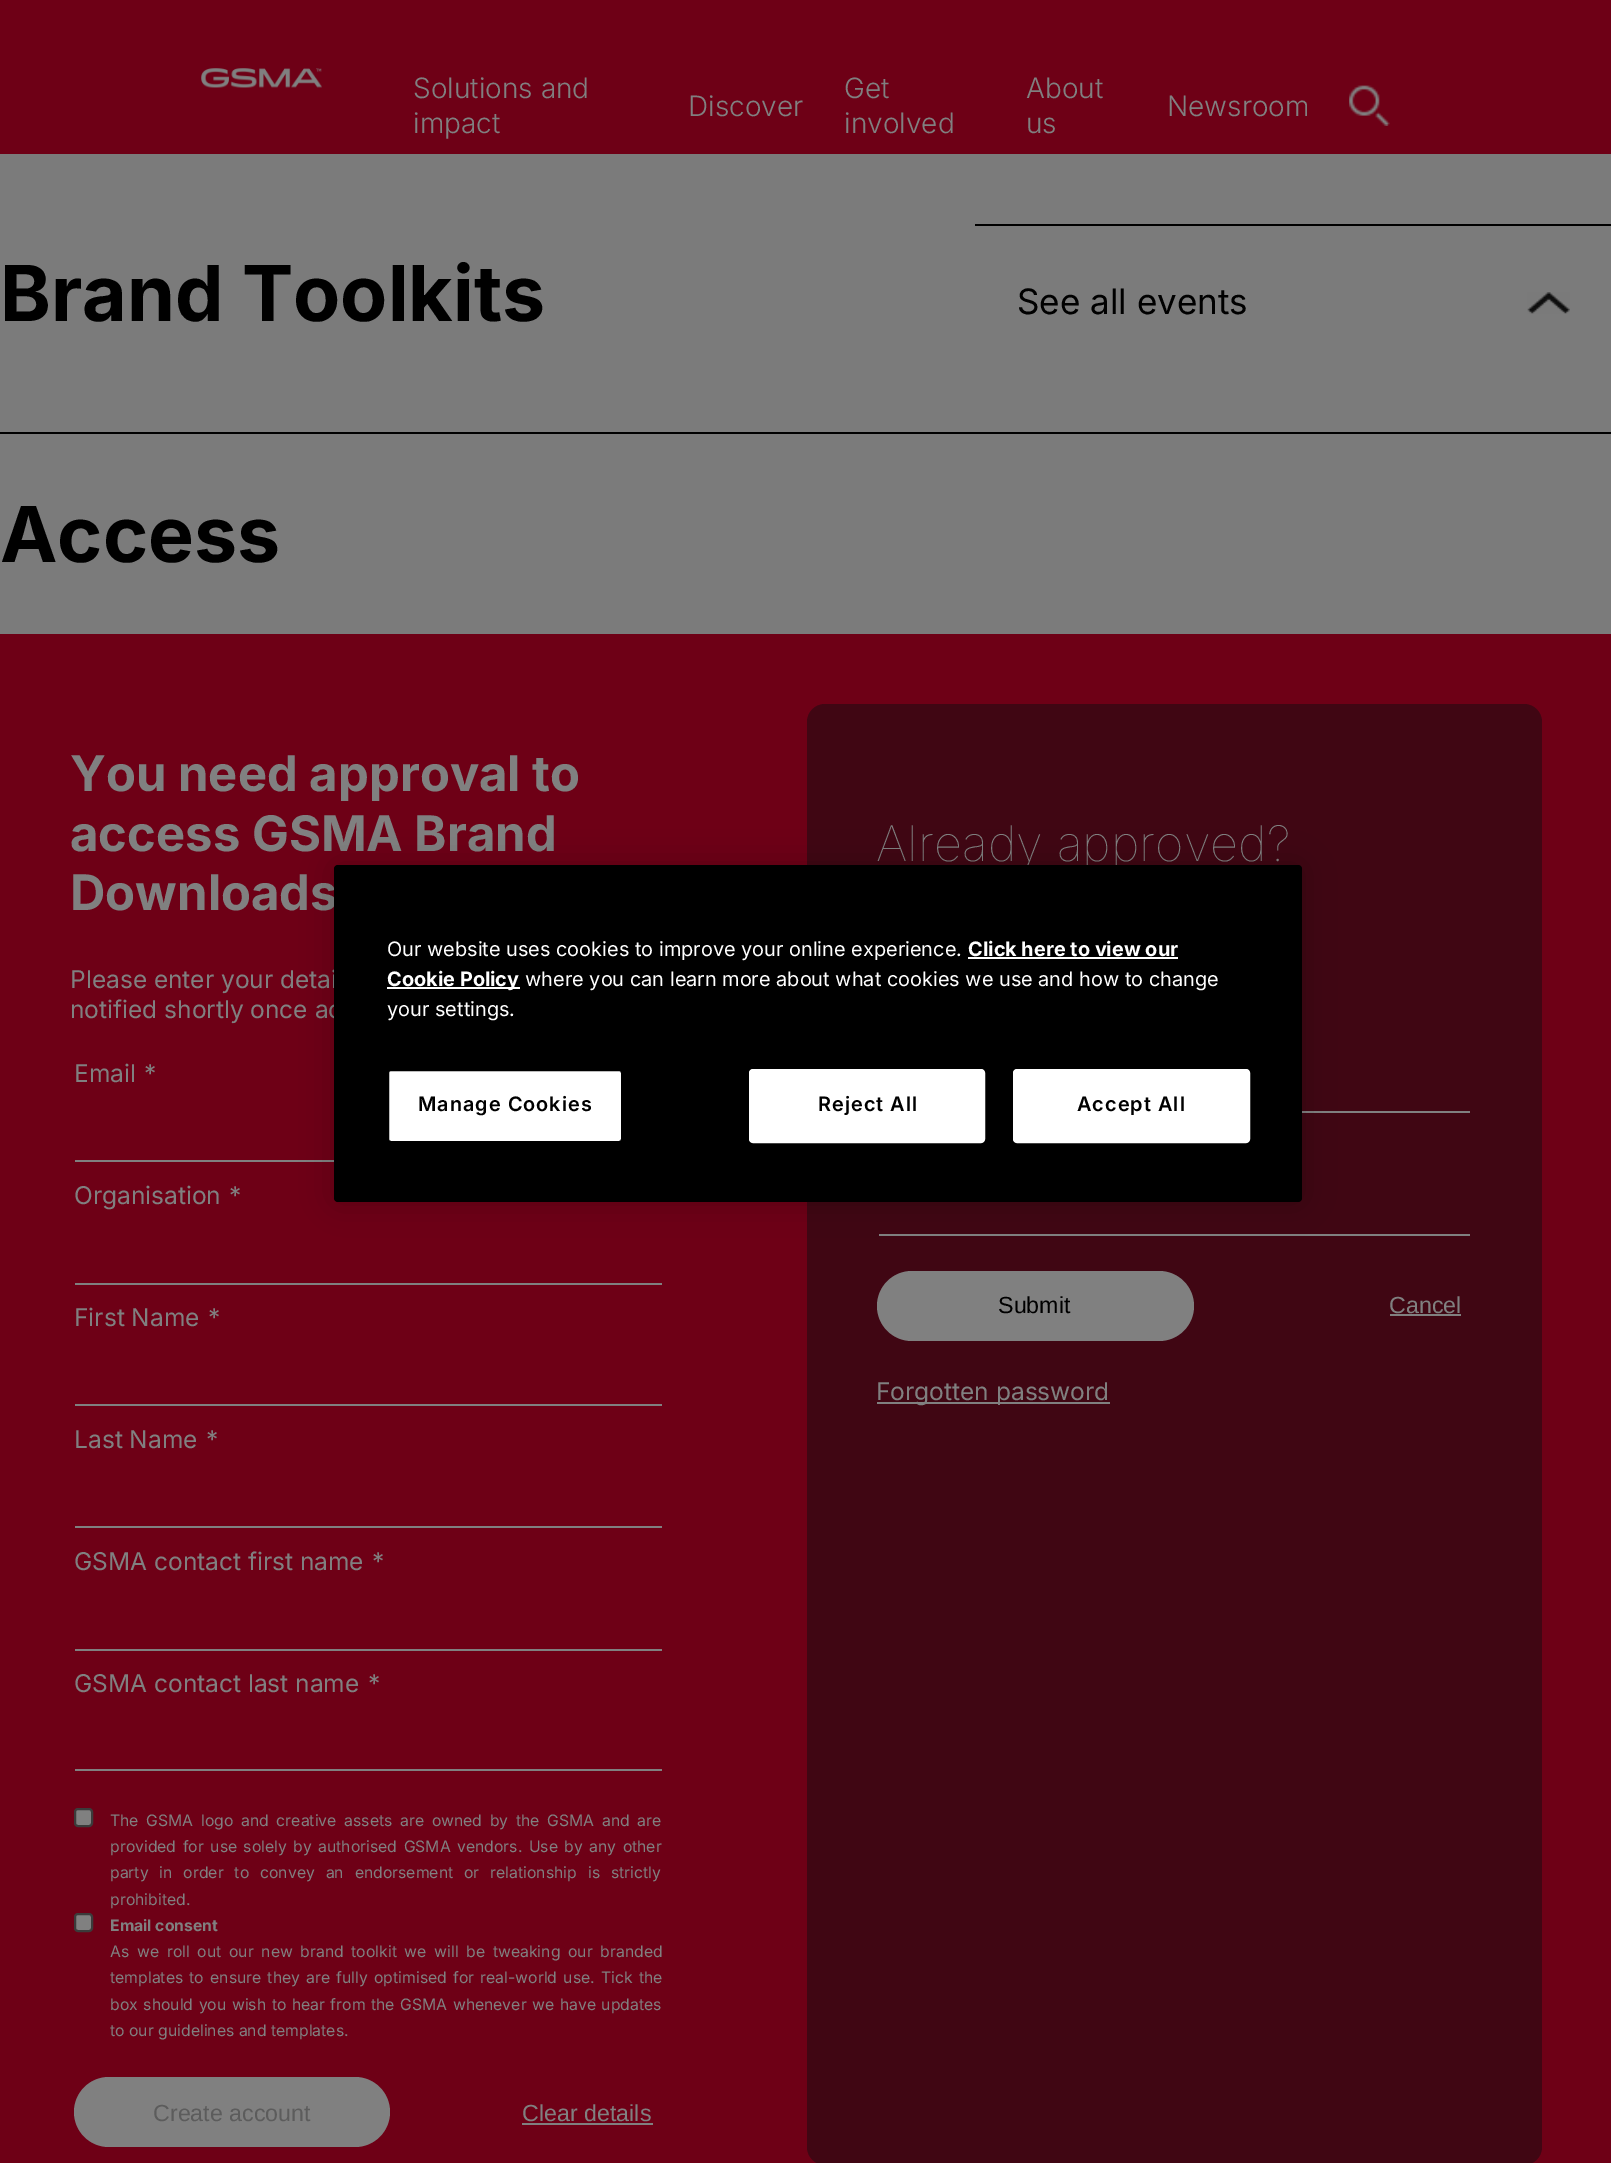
%!PS
<< /PageSize [1611 2163] /PageUsesTransparency true >> setpagedevice
/rgb { dup -16 bitshift 255 div exch dup -8 bitshift 255 and 255 div exch 255 and 255 div setrgbcolor } def
/font { [ exch dup neg 0 0 3 -1 roll 0 0 ] selectfont } def
/text { moveto show } def
/alpha { dup .setfillconstantalpha .setstrokeconstantalpha } def
/roundrect { 5 dict begin { /r /h /w /y /x } { exch def } forall
  x r add y moveto x w add y 2 copy h add r arct x w add y h add x 1 index r arct
  x y h add x y r arct x y 2 copy exch w add exch r arct closepath end } def
/shadow { 12 dict begin { /a /b /q /h /w /y /x } { exch def } forall gsave /was 0 def
  9 -2 -9 { dup b mul 4 div /e exch def 1 sub .425 mul 2.718 exch exp 1 add a .99 .min exch div /now exch def
    1 1 now sub 1 was sub div sub alpha /was now def
    w h .min e 2 mul add 0 gt { x e sub y e sub w e 2 mul add h e 2 mul add
      q e add b .6 mul add w h .min 2 div e add .min 0 .max roundrect fill } if } for grestore end } def
/picture { 5 dict begin { /h /w /y /x /name } { exch def } forall
  gsave x y translate w h scale
  w h 8 [w 0 0 h 0 0] name (r) file false 3 colorimage grestore end } def
0 .pushpdf14devicefilter
0 2163 translate 1 -1 scale
4 setmiterlimit
/s1 { /Inter-Light 28 font 16#808080 rgb } def
/s2 { /Inter-Bold 77 font 16#000000 rgb } def
/s3 { /Inter-Regular 35 font 16#000000 rgb } def
/s4 { /Inter-Bold 49 font 16#808080 rgb } def
/s5 { /Inter-Regular 24.5 font 16#808080 rgb } def
/s6 { /Inter-Regular 15.75 font 16#808080 rgb } def
/s7 { /Inter-Bold 15.75 font 16#808080 rgb } def
/s8 { /LiberationSans-Regular 23.25 font 16#5C5C5C rgb } def
/s9 { /LiberationSans-Regular 23.25 font 16#808080 rgb } def
/s10 { /Inter-Thin 49 font 16#808080 rgb } def
/s11 { /LiberationSans-Regular 23.25 font 16#000000 rgb } def
/s12 { /Inter-Regular 19.9 font 16#FFFFFF rgb } def
/s13 { /Inter-Bold 19.9 font 16#FFFFFF rgb } def
16#7B7B7B rgb
0 0 1611 2163 rectfill
16#6E0016 rgb
0 0 1611 154 rectfill
(pic1.raw) 201 68 121 20 picture
s1
(Solutions and) 413 98 text
(impact) 413 133 text
(Discover) 688 116 text
(Get) 844 98 text
(involved) 844 133 text
(About) 1026 98 text
(us) 1026 133 text
(Newsroom) 1167 116 text
(pic2.raw) 1349 85 41 41 picture
16#000000 rgb
0 432 1611 2 rectfill
s2
(Brand Toolkits) 0 321 text
975 224 636 2 rectfill
s3
(See all events) 1017 314 text
(pic3.raw) 1527 292 43 22 picture
s2
(Access) 0 562 text
16#6E0016 rgb
0 634 1611 1529 rectfill
s4
(You need approval to) 70 791 text
(access GSMA Brand) 70 851 text
(Downloads) 70 910 text
s5
(Please enter your detai) 70 988 text
(notified shortly once ac) 70 1018 text
(Email) 74 1082 text
(*) 144 1082 text
75 1160 259 2 rectfill
(Organisation) 74 1204 text
(*) 229 1204 text
75 1283 587 2 rectfill
(First Name) 74 1326 text
(*) 208 1326 text
75 1404 587 2 rectfill
(Last Name) 74 1448 text
(*) 206 1448 text
75 1526 587 2 rectfill
(GSMA contact first name) 74 1570 text
(*) 372 1570 text
75 1649 587 2 rectfill
(GSMA contact last name) 74 1692 text
(*) 368 1692 text
75 1769 587 2 rectfill
75 1809 17 17 3 roundrect gsave fill grestore
16#3B3B3B rgb
2 setlinewidth
stroke
/Inter-Regular 15.75 font
16#808080 rgb
110 1826 moveto 3.25 0 32 (The GSMA logo and creative assets are owned by the GSMA and are) widthshow
110 1852 moveto 2 0 32 (provided for use solely by authorised GSMA vendors. Use by any other) widthshow
110 1878 moveto 6.5 0 32 (party in order to convey an endorsement or relationship is strictly) widthshow
(prohibited.) 110 1905 text
75 1914 17 17 3 roundrect gsave fill grestore
16#3B3B3B rgb
stroke
s7
(Email consent) 110 1931 text
/Inter-Regular 15.75 font
110 1957 moveto 3.25 0 32 (As we roll out our new brand toolkit we will be tweaking our branded) widthshow
110 1983 moveto 1.75 0 32 (templates to ensure they are fully optimised for real-world use. Tick the) widthshow
110 2010 moveto 1.1 0 32 (box should you wish to hear from the GSMA whenever we have updates) widthshow
(to our guidelines and templates.) 110 2036 text
74 2077 316 70 35 roundrect fill
s8
(Create account) 153 2121 text
s9
(Clear details) 522 2121 text
522 2123 131 2 rectfill
16#400613 rgb
807 704 735 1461 18 roundrect fill
s10
(Already approved?) 876 861 text
1302 1111 168 2 rectfill
879 1234 591 2 rectfill
877 1271 317 70 35 roundrect fill
s11
(Submit) 998 1313 text
s9
(Cancel) 1389 1313 text
1390 1314 71 2 rectfill
877 1402 233 2 rectfill
s5
(Forgotten password) 876 1400 text
16#000000 rgb
334 865 968 337 4 16 0.2 shadow
334 865 968 337 4 roundrect fill
s12
(Our website uses cookies to improve your online experience.) 387 956 text
s13
(Click here to view our) 968 956 text
968 957 210 2 rectfill
387 987 133 2 rectfill
(Cookie Policy) 387 986 text
s12
(where you can learn more about what cookies we use and how to change) 525 986 text
(your settings.) 387 1016 text
388 1070 234 72 3 roundrect gsave fill grestore
16#000000 rgb
stroke
/Inter-SemiBold 19.9 font
418 1111 moveto 1 0 (Manage Cookies) ashow
16#FFFFFF rgb
750 1070 234 72 3 roundrect gsave fill grestore
stroke
16#000000 rgb
818 1111 moveto 1 0 (Reject All) ashow
16#FFFFFF rgb
1014 1070 235 72 3 roundrect gsave fill grestore
stroke
16#000000 rgb
1077 1111 moveto 1 0 (Accept All) ashow
.poppdf14devicefilter showpage
